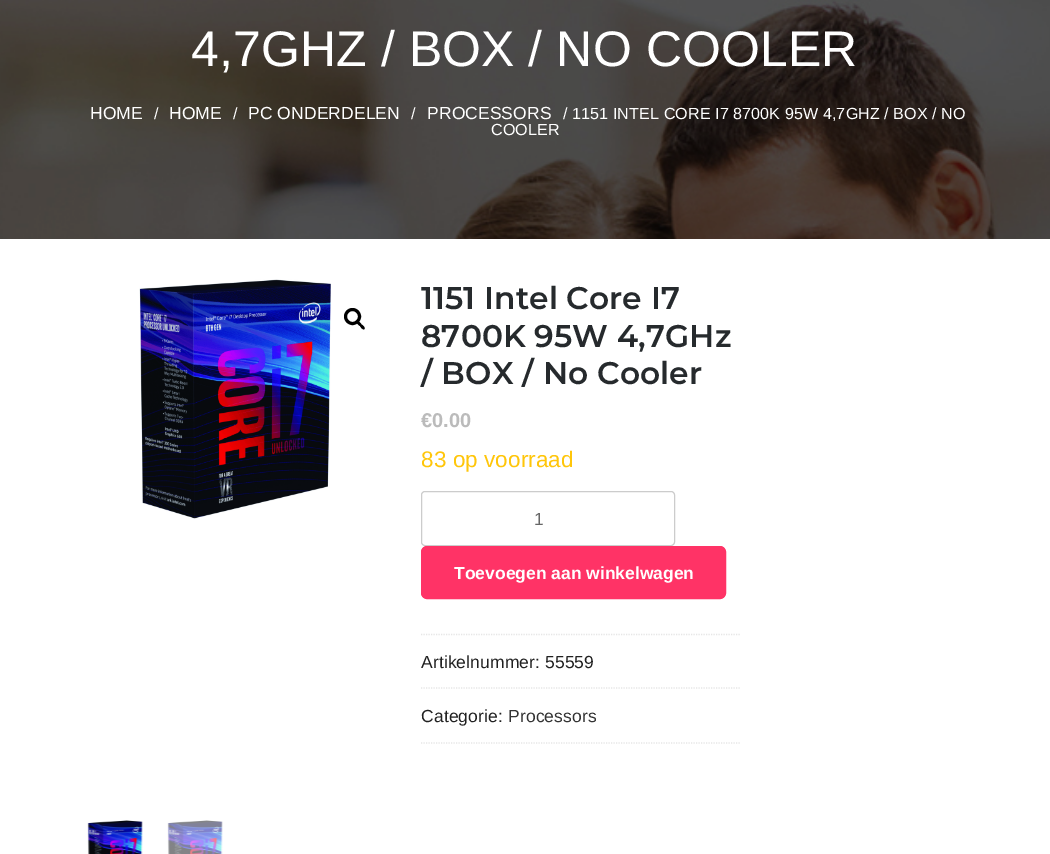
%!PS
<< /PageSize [1050 854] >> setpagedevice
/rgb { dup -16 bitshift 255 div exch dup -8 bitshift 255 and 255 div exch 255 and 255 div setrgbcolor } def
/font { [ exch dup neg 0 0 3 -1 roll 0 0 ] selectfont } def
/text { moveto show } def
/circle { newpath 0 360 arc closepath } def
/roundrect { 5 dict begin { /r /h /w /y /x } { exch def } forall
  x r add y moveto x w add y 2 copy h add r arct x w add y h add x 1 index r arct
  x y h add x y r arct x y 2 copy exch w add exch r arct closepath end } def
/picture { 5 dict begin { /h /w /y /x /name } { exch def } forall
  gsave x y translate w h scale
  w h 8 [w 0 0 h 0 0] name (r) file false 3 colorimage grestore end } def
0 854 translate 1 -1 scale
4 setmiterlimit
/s1 { /LiberationSans-Regular 17.5 font 16#666666 rgb } def
/s2 { /LiberationSans-Bold 17.5 font 16#FFFFFF rgb } def
16#FFFFFF rgb
0 0 1050 854 rectfill
(pic1.raw) 0 0 1050 239 picture
/LiberationSans-Regular 50 font
191 66 moveto 0.1 0 (4,7GHZ / BOX / NO COOLER) ashow
/LiberationSans-Regular 17.5 font
90 119 moveto 0.1 0 (HOME) ashow
/LiberationSans-Regular 16.1 font
154 119 moveto 0.1 0 (/) ashow
/LiberationSans-Regular 17.5 font
169 119 moveto 0.1 0 (HOME) ashow
/LiberationSans-Regular 16.1 font
233 119 moveto 0.1 0 (/) ashow
/LiberationSans-Regular 17.5 font
248 119 moveto 0.1 0 (PC ONDERDELEN) ashow
/LiberationSans-Regular 16.1 font
411 119 moveto 0.1 0 (/) ashow
/LiberationSans-Regular 17.5 font
427 119 moveto 0.1 0 (PROCESSORS) ashow
/LiberationSans-Regular 16.1 font
563 119 moveto 0.1 0 (/ 1151 INTEL CORE I7 8700K 95W 4,7GHZ / BOX / NO) ashow
491 135 moveto 0.1 0 (COOLER) ashow
(pic2.raw) 139 279 192 240 picture
16#000000 rgb
3 setlinewidth
352.5 316.5 7 circle stroke
357 322 moveto 358.5 320.5 361 323.5 361.5 324.5 curveto 362.5 325 365.5 327.5 364.5 329 curveto 363 330.5 360.5 327 360 326 curveto 359 325.5 356 323 357 322 curveto closepath fill
(pic3.raw) 87 820 56 34 picture
(pic4.raw) 167 820 56 34 picture
/Montserrat-SemiBold 31.25 font
16#262A2D rgb
421 309 moveto 0.1 0 (1151 Intel Core I7) ashow
421 347 moveto 0.1 0 (8700K 95W 4,7GHz) ashow
421 384 moveto 0.1 0 (/ BOX / No Cooler) ashow
/LiberationSans-Bold 20 font
16#BBBBBB rgb
421 427 moveto 0.1 0 (€0.00) ashow
/LiberationSans-Regular 22.5 font
16#FFC60A rgb
421 467 moveto 0.1 0 (83 op voorraad) ashow
16#CCCCCC rgb
1 setlinewidth
421.5 491.5 253 54 3.5 roundrect stroke
s1
(1) 534 525 text
16#FF3366 rgb
421.5 546.5 304 52 5.5 roundrect gsave fill grestore
stroke
s2
(Toevoegen aan winkelwagen) 454 579 text
16#E6E6E6 rgb
1.2 setlinewidth
[1.25 1.25] 0 setdash
421 634.5 moveto 741 634.5 lineto stroke
421 688 moveto 741 688 lineto stroke
/LiberationSans-Regular 17.5 font
16#212121 rgb
421 668 moveto 0.1 0 (Artikelnummer: 55559) ashow
16#E6E6E6 rgb
421 743 moveto 741 743 lineto stroke
16#212121 rgb
421 722 moveto 0.1 0 (Categorie:) ashow
16#333333 rgb
508 722 moveto 0.1 0 (Processors) ashow
showpage
